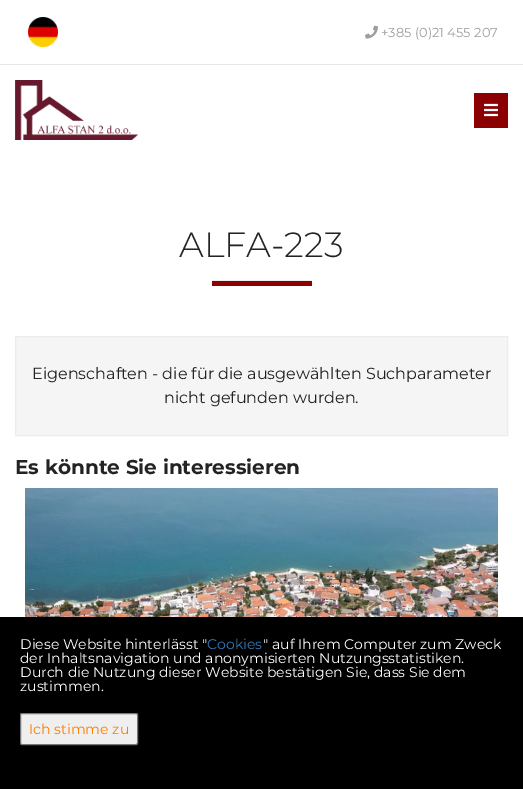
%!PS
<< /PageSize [523 789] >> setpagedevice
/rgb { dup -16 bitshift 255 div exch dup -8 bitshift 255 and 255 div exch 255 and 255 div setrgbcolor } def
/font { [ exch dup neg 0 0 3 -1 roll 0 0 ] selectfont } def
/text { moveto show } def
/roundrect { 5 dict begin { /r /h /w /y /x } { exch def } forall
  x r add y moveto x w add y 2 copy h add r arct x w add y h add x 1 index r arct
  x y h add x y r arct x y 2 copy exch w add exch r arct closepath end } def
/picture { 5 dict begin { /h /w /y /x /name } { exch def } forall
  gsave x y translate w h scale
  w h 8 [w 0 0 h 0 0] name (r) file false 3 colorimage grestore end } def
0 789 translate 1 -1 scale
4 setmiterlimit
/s1 { /Montserrat-Regular 13 font 16#9E9E9E rgb } def
/s2 { /Montserrat-Light 35 font 16#232323 rgb } def
/s3 { /Montserrat-Regular 16 font 16#232323 rgb } def
/s4 { /Montserrat-Bold 20 font 16#232323 rgb } def
/s5 { /Montserrat-Regular 14 font 16#FFFFFF rgb } def
/s6 { /Montserrat-Regular 14 font 16#337AB7 rgb } def
/s7 { /Montserrat-Regular 14 font 16#FF7E00 rgb } def
16#FFFFFF rgb
0 0 523 789 rectfill
16#E7E7E7 rgb
0 64 523 1 rectfill
(pic1.raw) 28 17 30 30 picture
(pic2.raw) 365 25 13 14 picture
s1
(+385 \(0\)21 455 207) 381 37 text
(pic3.raw) 15 80 123 60 picture
16#8B0000 rgb
474 93 34 35 rectfill
(pic4.raw) 484 103 14 14 picture
s2
(ALFA-223) 179 257 text
16#8C0000 rgb
212 281 100 5 rectfill
16#EEEEEE rgb
212 280 100 1 rectfill
16#F5F5F5 rgb
15.5 336.5 moveto 507.5 336.5 lineto 507.5 435.5 lineto 15.5 435.5 lineto closepath gsave fill grestore
16#ECECEC rgb
stroke
s3
(Eigenschaften - die für die ausgewählten Suchparameter) 32 379 text
(nicht gefunden wurden.) 164 403 text
s4
(Es könnte Sie interessieren) 15 474 text
(pic5.raw) 25 488 473 129 picture
16#000000 rgb
0 617 523 172 rectfill
s5
(Diese Website hinterlässt ") 20 649 text
s6
(Cookies) 207 649 text
s5
(" auf Ihrem Computer zum Zweck) 263 649 text
(der Inhaltsnavigation und anonymisierten Nutzungsstatistiken.) 20 663 text
(Durch die Nutzung dieser Website bestätigen Sie, dass Sie dem) 20 677 text
(zustimmen.) 20 691 text
16#EFEFEF rgb
20.5 713.5 117 31 1.5 roundrect gsave fill grestore
16#767676 rgb
stroke
s7
(Ich stimme zu) 29 734 text
showpage
